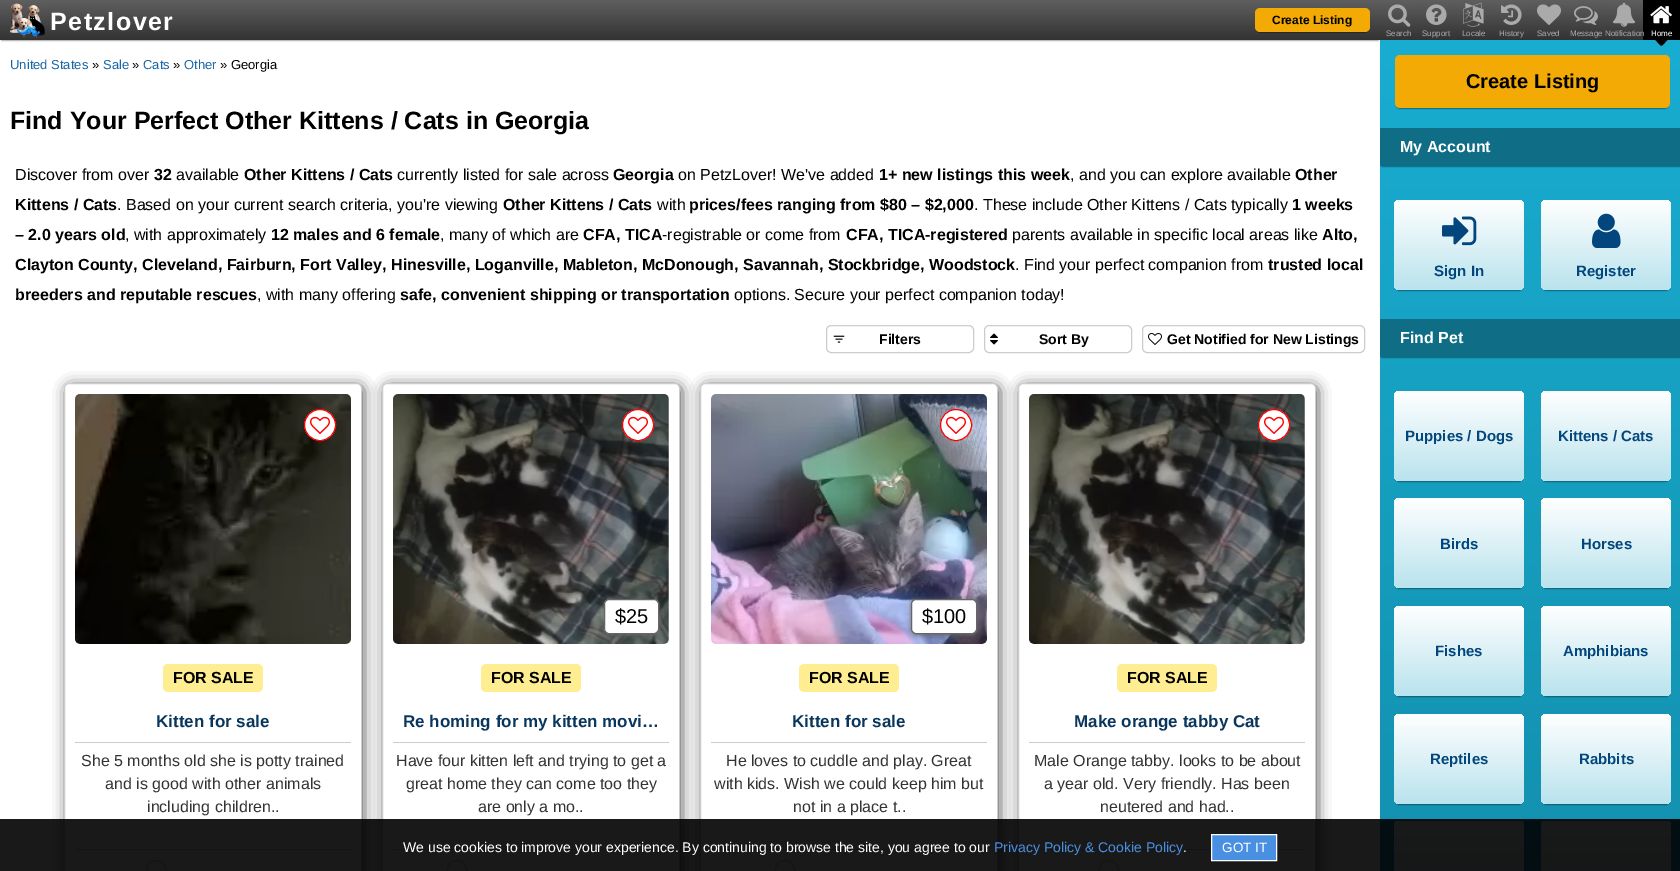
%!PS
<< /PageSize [1680 871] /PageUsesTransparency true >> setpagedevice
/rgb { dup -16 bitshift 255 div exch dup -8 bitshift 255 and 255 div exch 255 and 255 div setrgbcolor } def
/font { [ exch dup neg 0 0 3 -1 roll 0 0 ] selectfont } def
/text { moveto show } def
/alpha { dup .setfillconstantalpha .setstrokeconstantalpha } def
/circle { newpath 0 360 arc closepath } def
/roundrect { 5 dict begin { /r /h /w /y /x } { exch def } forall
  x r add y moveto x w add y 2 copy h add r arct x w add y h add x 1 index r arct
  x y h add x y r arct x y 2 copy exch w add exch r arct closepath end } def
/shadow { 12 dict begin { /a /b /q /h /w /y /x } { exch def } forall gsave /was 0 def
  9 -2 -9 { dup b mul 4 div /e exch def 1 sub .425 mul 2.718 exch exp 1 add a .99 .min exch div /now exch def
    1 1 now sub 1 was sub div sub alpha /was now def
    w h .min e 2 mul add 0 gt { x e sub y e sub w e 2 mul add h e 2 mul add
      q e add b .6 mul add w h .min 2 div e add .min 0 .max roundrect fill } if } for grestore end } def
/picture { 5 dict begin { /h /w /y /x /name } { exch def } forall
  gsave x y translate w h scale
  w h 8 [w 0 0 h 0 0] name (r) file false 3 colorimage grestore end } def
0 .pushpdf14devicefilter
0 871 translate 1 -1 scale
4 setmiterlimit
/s1 { /LiberationSans-Bold 12 font 16#000000 rgb } def
/s2 { /LiberationSans-Regular 8 font 16#AAAAAA rgb } def
/s3 { /LiberationSans-Regular 8 font 16#FFFFFF rgb } def
/s4 { /LiberationSans-Bold 20 font 16#000000 rgb } def
/s5 { /LiberationSans-Bold 16 font 16#FFFFFF rgb } def
/s6 { /LiberationSans-Bold 15 font 16#02467D rgb } def
/s7 { /LiberationSans-Regular 13 font 16#1866A7 rgb } def
/s8 { /LiberationSans-Regular 13 font 16#000000 rgb } def
/s9 { /LiberationSans-Bold 25 font 16#000000 rgb } def
/s10 { /LiberationSans-Regular 16 font 16#000000 rgb } def
/s11 { /LiberationSans-Bold 16 font 16#000000 rgb } def
/s12 { /LiberationSans-Bold 14 font 16#000000 rgb } def
/s13 { /LiberationSans-Bold 17 font 16#09365C rgb } def
/s14 { /LiberationSans-Regular 16 font 16#333333 rgb } def
/s15 { /LiberationSans-Regular 20 font 16#000000 rgb } def
/s16 { /LiberationSans-Regular 14 font 16#FFFFFF rgb } def
/s17 { /LiberationSans-Regular 14 font 16#4A90E2 rgb } def
/s18 { /LiberationSans-Regular 13.5 font 16#FFFFFF rgb } def
16#FFFFFF rgb
0 0 1680 871 rectfill
16#000000 rgb
2 4 1376 36 0 1 0.82 shadow
gsave 0 0 moveto 1380 0 lineto 1380 40 lineto 0 40 lineto closepath clip newpath
<< /ShadingType 2 /ColorSpace /DeviceRGB /Coords [690 0 690 40] /Extend [true true] /Function << /FunctionType 2 /Domain [0 1] /C0 [0.373 0.373 0.373] /C1 [0.2 0.2 0.2] /N 1 >> >> shfill grestore
(pic1.raw) 10 3 35 35 picture
/LiberationSans-Bold 25 font
16#FFFFFF rgb
50 30 moveto 1.5 0 (Petzlover) ashow
16#000000 rgb
1257 12 111 20 3 1 1 shadow
16#F3AA05 rgb
1255 8 115 24 5 roundrect fill
s1
(Create Listing) 1272 24 text
gsave 1380 0 moveto 1643 0 lineto 1643 40 lineto 1380 40 lineto closepath clip newpath
<< /ShadingType 2 /ColorSpace /DeviceRGB /Coords [1530 0 1530 40] /Extend [true true] /Function << /FunctionType 2 /Domain [0 1] /C0 [0.373 0.373 0.373] /C1 [0.2 0.2 0.2] /N 1 >> >> shfill grestore
1643 0 37 40 rectfill
gsave 1380 40 moveto 1680 40 lineto 1680 871 lineto 1380 871 lineto closepath clip newpath
<< /ShadingType 2 /ColorSpace /DeviceRGB /Coords [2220 40 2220 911] /Extend [true true] /Function << /FunctionType 2 /Domain [0 1] /C0 [0.098 0.678 0.82] /C1 [0.075 0.561 0.678] /N 1 >> >> shfill grestore
1662 32.5 moveto 1666.5 37.5 lineto 1669 40 1667 40 1665 42.5 curveto 1662.5 45 1662 47 1659.5 44.5 curveto 1655 39.5 lineto 1653.5 38.5 1657 36 1657.5 35.5 curveto 1658.5 35 1660.5 31.5 1662 32.5 curveto closepath fill
(pic2.raw) 1388 4 23 23 picture
s2
(Search) 1386 36 text
(pic3.raw) 1426 4 21 21 picture
(Support) 1422 36 text
(pic4.raw) 1463 2 21 25 picture
(Locale) 1462 36 text
(pic5.raw) 1501 4 21 21 picture
(History) 1499 36 text
(pic6.raw) 1537 4 24 21 picture
(Saved) 1537 36 text
(pic7.raw) 1574 6 24 19 picture
(Message) 1570 36 text
(pic8.raw) 1612 2 24 25 picture
(Notification) 1605 36 text
(pic9.raw) 1650 6 22 18 picture
s3
(Home) 1651 36 text
16#000000 rgb
1397 59 271 49 3 1 1 shadow
16#F3AA05 rgb
1395 55 275 53 5 roundrect fill
s4
(Create Listing) 1466 88 text
1382 132 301 34 0 1 1 shadow
16#0F6E85 rgb
1380 128 300 38 rectfill
s5
(My Account) 1400 152 text
16#000000 rgb
1396 204 126 86 3 1 1 shadow
gsave 1394 200 130 90 5 roundrect clip newpath
<< /ShadingType 2 /ColorSpace /DeviceRGB /Coords [1459 200 1459 290] /Extend [true true] /Function << /FunctionType 2 /Domain [0 1] /C0 [1 1 1] /C1 [0.725 0.89 0.929] /N 1 >> >> shfill grestore
(pic10.raw) 1442 216 35 30 picture
s6
(Sign In) 1434 276 text
16#000000 rgb
1543 204 126 86 3 1 1 shadow
gsave 1541 200 130 90 5 roundrect clip newpath
<< /ShadingType 2 /ColorSpace /DeviceRGB /Coords [1606 200 1606 290] /Extend [true true] /Function << /FunctionType 2 /Domain [0 1] /C0 [1 1 1] /C1 [0.725 0.89 0.929] /N 1 >> >> shfill grestore
(pic11.raw) 1592 213 29 35 picture
s6
(Register) 1576 276 text
16#000000 rgb
1382 323 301 34 0 1 1 shadow
16#0F6E85 rgb
1380 319 300 38 rectfill
s5
(Find Pet) 1400 343 text
16#000000 rgb
1396 395 126 86 3 1 1 shadow
gsave 1394 391 130 90 5 roundrect clip newpath
<< /ShadingType 2 /ColorSpace /DeviceRGB /Coords [1459 391 1459 481] /Extend [true true] /Function << /FunctionType 2 /Domain [0 1] /C0 [1 1 1] /C1 [0.725 0.89 0.929] /N 1 >> >> shfill grestore
s6
(Puppies / Dogs) 1405 441 text
16#000000 rgb
1543 395 126 86 3 1 1 shadow
gsave 1541 391 130 90 5 roundrect clip newpath
<< /ShadingType 2 /ColorSpace /DeviceRGB /Coords [1606 391 1606 481] /Extend [true true] /Function << /FunctionType 2 /Domain [0 1] /C0 [1 1 1] /C1 [0.725 0.89 0.929] /N 1 >> >> shfill grestore
s6
(Kittens / Cats) 1558 441 text
16#000000 rgb
1396 502 126 86 3 1 1 shadow
gsave 1394 498 130 90 5 roundrect clip newpath
<< /ShadingType 2 /ColorSpace /DeviceRGB /Coords [1459 498 1459 588] /Extend [true true] /Function << /FunctionType 2 /Domain [0 1] /C0 [1 1 1] /C1 [0.725 0.89 0.929] /N 1 >> >> shfill grestore
s6
(Birds) 1440 549 text
16#000000 rgb
1543 502 126 86 3 1 1 shadow
gsave 1541 498 130 90 5 roundrect clip newpath
<< /ShadingType 2 /ColorSpace /DeviceRGB /Coords [1606 498 1606 588] /Extend [true true] /Function << /FunctionType 2 /Domain [0 1] /C0 [1 1 1] /C1 [0.725 0.89 0.929] /N 1 >> >> shfill grestore
s6
(Horses) 1581 549 text
16#000000 rgb
1396 610 126 86 3 1 1 shadow
gsave 1394 606 130 90 5 roundrect clip newpath
<< /ShadingType 2 /ColorSpace /DeviceRGB /Coords [1459 606 1459 696] /Extend [true true] /Function << /FunctionType 2 /Domain [0 1] /C0 [1 1 1] /C1 [0.725 0.89 0.929] /N 1 >> >> shfill grestore
s6
(Fishes) 1435 656 text
16#000000 rgb
1543 610 126 86 3 1 1 shadow
gsave 1541 606 130 90 5 roundrect clip newpath
<< /ShadingType 2 /ColorSpace /DeviceRGB /Coords [1606 606 1606 696] /Extend [true true] /Function << /FunctionType 2 /Domain [0 1] /C0 [1 1 1] /C1 [0.725 0.89 0.929] /N 1 >> >> shfill grestore
s6
(Amphibians) 1563 656 text
16#000000 rgb
1396 718 126 86 3 1 1 shadow
gsave 1394 714 130 90 5 roundrect clip newpath
<< /ShadingType 2 /ColorSpace /DeviceRGB /Coords [1459 714 1459 804] /Extend [true true] /Function << /FunctionType 2 /Domain [0 1] /C0 [1 1 1] /C1 [0.725 0.89 0.929] /N 1 >> >> shfill grestore
s6
(Reptiles) 1430 764 text
16#000000 rgb
1543 718 126 86 3 1 1 shadow
gsave 1541 714 130 90 5 roundrect clip newpath
<< /ShadingType 2 /ColorSpace /DeviceRGB /Coords [1606 714 1606 804] /Extend [true true] /Function << /FunctionType 2 /Domain [0 1] /C0 [1 1 1] /C1 [0.725 0.89 0.929] /N 1 >> >> shfill grestore
s6
(Rabbits) 1579 764 text
gsave 1399 821 moveto 1519 821 lineto 1522 821 1524 823 1524 826 curveto 1524 871 lineto 1394 871 lineto 1394 826 lineto 1394 823 1396 821 1399 821 curveto closepath clip newpath
<< /ShadingType 2 /ColorSpace /DeviceRGB /Coords [1459 821 1459 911] /Extend [true true] /Function << /FunctionType 2 /Domain [0 1] /C0 [1 1 1] /C1 [0.725 0.89 0.929] /N 1 >> >> shfill grestore
gsave 1546 821 moveto 1666 821 lineto 1669 821 1671 823 1671 826 curveto 1671 871 lineto 1541 871 lineto 1541 826 lineto 1541 823 1543 821 1546 821 curveto closepath clip newpath
<< /ShadingType 2 /ColorSpace /DeviceRGB /Coords [1606 821 1606 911] /Extend [true true] /Function << /FunctionType 2 /Domain [0 1] /C0 [1 1 1] /C1 [0.725 0.89 0.929] /N 1 >> >> shfill grestore
s7
(United States) 10 69 text
s8
(») 92 69 text
s7
(Sale) 103 69 text
s8
(») 132 69 text
s7
(Cats) 143 69 text
s8
(») 173 69 text
s7
(Other) 184 69 text
s8
(» Georgia) 220 69 text
s9
(Find Your Perfect Other Kittens / Cats in Georgia) 10 129 text
s10
(Discover from over) 15 180 text
s11
(32) 154 180 text
s10
(available) 176 180 text
s11
(Other Kittens / Cats) 244 180 text
s10
(currently listed for sale across) 397 180 text
s11
(Georgia) 613 180 text
s10
(on PetzLover! We've added) 678 180 text
s11
(1+ new listings this week) 879 180 text
s10
(, and you can explore available) 1070 180 text
s11
(Other) 1295 180 text
(Kittens / Cats) 15 210 text
s10
(. Based on your current search criteria, you're viewing) 117 210 text
s11
(Other Kittens / Cats) 503 210 text
s10
(with) 657 210 text
s11
(prices/fees ranging from $80 – $2,000) 689 210 text
s10
(. These include Other Kittens / Cats typically) 974 210 text
s11
(1 weeks) 1292 210 text
(– 2.0 years old) 15 240 text
s10
(, with approximately) 125 240 text
s11
(12 males and 6 female) 271 240 text
s10
(, many of which are) 440 240 text
s11
(CFA, TICA) 583 240 text
s10
(-registrable or come from) 662 240 text
s11
(CFA, TICA-registered) 846 240 text
s10
(parents available in specific local areas like) 1012 240 text
s11
(Alto,) 1322 240 text
(Clayton County, Cleveland, Fairburn, Fort Valley, Hinesville, Loganville, Mableton, McDonough, Savannah, Stockbridge, Woodstock) 15 270 text
s10
(. Find your perfect companion from) 1015 270 text
s11
(trusted local) 1268 270 text
(breeders and reputable rescues) 15 300 text
s10
(, with many offering) 257 300 text
s11
(safe, convenient shipping or transportation) 400 300 text
s10
(options. Secure your perfect companion today!) 734 300 text
16#CCCCCC rgb
826.5 325.5 147 27 4.5 roundrect stroke
(pic12.raw) 833 335 12 8 picture
s12
(Filters) 879 344 text
16#CCCCCC rgb
984.5 325.5 147 27 4.5 roundrect stroke
(pic13.raw) 990 333 8 12 picture
s12
(Sort By) 1039 344 text
16#CCCCCC rgb
1142.5 325.5 222 27 4.5 roundrect stroke
(pic14.raw) 1148 333 14 12 picture
s12
(Get Notified for New Listings) 1167 344 text
gsave
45 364 moveto 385 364 lineto 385 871 lineto 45 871 lineto closepath 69 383 moveto 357 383 lineto 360 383 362 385 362 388 curveto 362 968 lineto 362 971 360 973 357 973 curveto 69 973 lineto 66 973 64 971 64 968 curveto 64 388 lineto 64 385 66 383 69 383 curveto closepath eoclip newpath
69 388 292 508 2 7.5 1 shadow
grestore
16#CCCCCC rgb
64.5 383.5 297 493 4.5 roundrect stroke
(pic15.raw) 75 394 276 250 picture
16#FFFFFF rgb
320 425 15.5 circle gsave fill grestore
16#FF0000 rgb
stroke
(pic16.raw) 310 416 20 18 picture
16#FFEE91 rgb
163 664 100 28 5 roundrect fill
s11
(FOR SALE) 173 683 text
16#CCCCCC rgb
75 742 276 1 rectfill
s13
(Kitten for sale) 156 727 text
s14
(She 5 months old she is potty trained) 81 766 text
(and is good with other animals) 105 789 text
(including children..) 147 812 text
16#CCCCCC rgb
75 849 276 1 rectfill
156 870 9.5 circle stroke
gsave
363 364 moveto 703 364 lineto 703 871 lineto 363 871 lineto closepath 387 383 moveto 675 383 lineto 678 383 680 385 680 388 curveto 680 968 lineto 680 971 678 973 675 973 curveto 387 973 lineto 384 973 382 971 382 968 curveto 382 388 lineto 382 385 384 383 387 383 curveto closepath eoclip newpath
16#000000 rgb
387 388 292 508 2 7.5 1 shadow
grestore
382.5 383.5 297 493 4.5 roundrect stroke
(pic17.raw) 393 394 276 250 picture
16#FFFFFF rgb
638 425 15.5 circle gsave fill grestore
16#FF0000 rgb
stroke
(pic16.raw) 628 416 20 18 picture
16#666666 rgb
604 600 55 35 5 3 1 shadow
16#FFFFFF rgb
604.5 599.5 54 34 4.5 roundrect gsave fill grestore
16#666666 rgb
stroke
s15
($25) 615 623 text
16#FFEE91 rgb
481 664 100 28 5 roundrect fill
s11
(FOR SALE) 491 683 text
16#CCCCCC rgb
393 742 276 1 rectfill
s13
(Re homing for my kitten movi…) 403 727 text
s14
(Have four kitten left and trying to get a) 396 766 text
(great home they can come too they) 406 789 text
(are only a mo..) 478 812 text
16#CCCCCC rgb
393 849 276 1 rectfill
457 870 9.5 circle stroke
gsave
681 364 moveto 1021 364 lineto 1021 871 lineto 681 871 lineto closepath 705 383 moveto 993 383 lineto 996 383 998 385 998 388 curveto 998 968 lineto 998 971 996 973 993 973 curveto 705 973 lineto 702 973 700 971 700 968 curveto 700 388 lineto 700 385 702 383 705 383 curveto closepath eoclip newpath
16#000000 rgb
705 388 292 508 2 7.5 1 shadow
grestore
700.5 383.5 297 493 4.5 roundrect stroke
(pic18.raw) 711 394 276 250 picture
16#FFFFFF rgb
956 425 15.5 circle gsave fill grestore
16#FF0000 rgb
stroke
(pic16.raw) 946 416 20 18 picture
16#666666 rgb
911 600 66 35 5 3 1 shadow
16#FFFFFF rgb
911.5 599.5 65 34 4.5 roundrect gsave fill grestore
16#666666 rgb
stroke
s15
($100) 922 623 text
16#FFEE91 rgb
799 664 100 28 5 roundrect fill
s11
(FOR SALE) 809 683 text
16#CCCCCC rgb
711 742 276 1 rectfill
s13
(Kitten for sale) 792 727 text
s14
(He loves to cuddle and play. Great) 726 766 text
(with kids. Wish we could keep him but) 714 789 text
(not in a place t..) 793 812 text
16#CCCCCC rgb
711 849 276 1 rectfill
785 870 9.5 circle stroke
gsave
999 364 moveto 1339 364 lineto 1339 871 lineto 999 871 lineto closepath 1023 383 moveto 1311 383 lineto 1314 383 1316 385 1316 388 curveto 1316 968 lineto 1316 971 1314 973 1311 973 curveto 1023 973 lineto 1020 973 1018 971 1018 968 curveto 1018 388 lineto 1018 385 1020 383 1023 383 curveto closepath eoclip newpath
16#000000 rgb
1023 388 292 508 2 7.5 1 shadow
grestore
1018.5 383.5 297 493 4.5 roundrect stroke
(pic17.raw) 1029 394 276 250 picture
16#FFFFFF rgb
1274 425 15.5 circle gsave fill grestore
16#FF0000 rgb
stroke
(pic16.raw) 1264 416 20 18 picture
16#FFEE91 rgb
1117 664 100 28 5 roundrect fill
s11
(FOR SALE) 1127 683 text
16#CCCCCC rgb
1029 742 276 1 rectfill
s13
(Make orange tabby Cat) 1074 727 text
s14
(Male Orange tabby. looks to be about) 1034 766 text
(a year old. Very friendly. Has been) 1044 789 text
(neutered and had..) 1100 812 text
16#CCCCCC rgb
1029 849 276 1 rectfill
1109 870 9.5 circle stroke
0.9 alpha
16#000000 rgb
0 819 1680 52 rectfill
1 alpha
s16
(We use cookies to improve your experience. By continuing to browse the site, you agree to our) 403 852 text
s17
(Privacy Policy & Cookie Policy) 994 852 text
s16
(.) 1183 852 text
16#4A90E2 rgb
1211.5 834.5 moveto 1276.5 834.5 lineto 1276.5 860.5 lineto 1211.5 860.5 lineto closepath gsave fill grestore
16#FFFFFF rgb
stroke
s18
(GOT IT) 1222 852 text
.poppdf14devicefilter showpage
